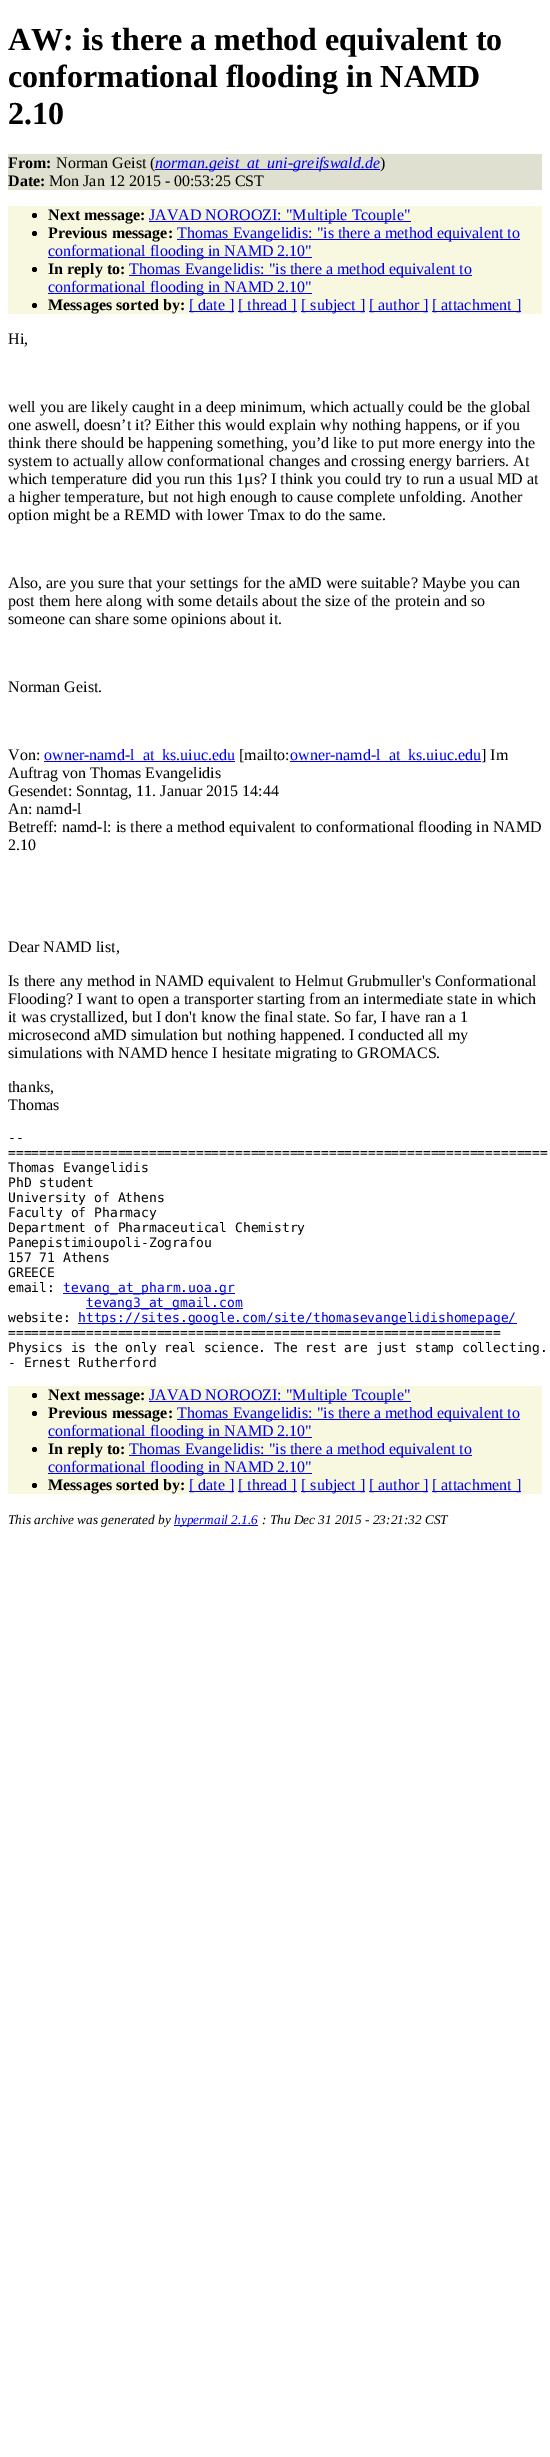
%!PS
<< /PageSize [550 2457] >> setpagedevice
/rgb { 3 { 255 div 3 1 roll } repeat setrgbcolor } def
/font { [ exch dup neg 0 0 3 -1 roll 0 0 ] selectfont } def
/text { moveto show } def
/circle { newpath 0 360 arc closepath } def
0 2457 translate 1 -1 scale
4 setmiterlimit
255 255 255 rgb
0 0 550 2457 rectfill
224 224 208 rgb
8 154 534 36 rectfill
0 0 238 rgb
155 169 225 1 rectfill
248 248 224 rgb
8 206 534 108 rectfill
0 0 0 rgb
34.5 215.5 2.5 circle fill
0 0 238 rgb
149 221 262 1 rectfill
0 0 0 rgb
34.5 233.5 2.5 circle fill
0 0 238 rgb
177 239 343 1 rectfill
48 257 264 1 rectfill
0 0 0 rgb
34.5 269.5 2.5 circle fill
0 0 238 rgb
129 275 343 1 rectfill
48 293 264 1 rectfill
0 0 0 rgb
34.5 305.5 2.5 circle fill
0 0 238 rgb
189 311 45 1 rectfill
238 311 59 1 rectfill
301 311 64 1 rectfill
369 311 59 1 rectfill
432 311 89 1 rectfill
44 761 191 1 rectfill
290 761 191 1 rectfill
63 1293 172 1 rectfill
86 1308 157 1 rectfill
78 1323 439 1 rectfill
248 248 224 rgb
8 1386 534 108 rectfill
0 0 0 rgb
34.5 1395.5 2.5 circle fill
0 0 238 rgb
149 1401 262 1 rectfill
0 0 0 rgb
34.5 1413.5 2.5 circle fill
0 0 238 rgb
177 1419 343 1 rectfill
48 1437 264 1 rectfill
0 0 0 rgb
34.5 1449.5 2.5 circle fill
0 0 238 rgb
129 1455 343 1 rectfill
48 1473 264 1 rectfill
0 0 0 rgb
34.5 1485.5 2.5 circle fill
0 0 238 rgb
189 1491 45 1 rectfill
238 1491 59 1 rectfill
301 1491 64 1 rectfill
369 1491 59 1 rectfill
432 1491 89 1 rectfill
174 1525 84 1 rectfill
/LiberationSerif-Bold 32 font
0 0 0 rgb
(AW: is there a method equivalent to) 8 50 text
(conformational flooding in NAMD) 8 87 text
(2.10) 8 124 text
/LiberationSerif-Bold 16 font
(From:) 8 168 text
/LiberationSerif-Regular 16 font
(Norman Geist \() 56 168 text
/LiberationSerif-Italic 16 font
0 0 238 rgb
(norman.geist_at_uni-greifswald.de) 155 168 text
/LiberationSerif-Regular 16 font
0 0 0 rgb
(\)) 380 168 text
/LiberationSerif-Bold 16 font
(Date:) 8 186 text
/LiberationSerif-Regular 16 font
(Mon Jan 12 2015 - 00:53:25 CST) 49 186 text
/LiberationSerif-Bold 16 font
(Next message:) 48 220 text
/LiberationSerif-Regular 16 font
0 0 238 rgb
(JAVAD NOROOZI: "Multiple Tcouple") 149 220 text
/LiberationSerif-Bold 16 font
0 0 0 rgb
(Previous message:) 48 238 text
/LiberationSerif-Regular 16 font
0 0 238 rgb
(Thomas Evangelidis: "is there a method equivalent to) 177 238 text
(conformational flooding in NAMD 2.10") 48 256 text
/LiberationSerif-Bold 16 font
0 0 0 rgb
(In reply to:) 48 274 text
/LiberationSerif-Regular 16 font
0 0 238 rgb
(Thomas Evangelidis: "is there a method equivalent to) 129 274 text
(conformational flooding in NAMD 2.10") 48 292 text
/LiberationSerif-Bold 16 font
0 0 0 rgb
(Messages sorted by:) 48 310 text
/LiberationSerif-Regular 16 font
0 0 238 rgb
([ date ]) 189 310 text
([ thread ]) 238 310 text
([ subject ]) 301 310 text
([ author ]) 369 310 text
([ attachment ]) 432 310 text
0 0 0 rgb
(Hi,) 8 344 text
(well you are likely caught in a deep minimum, which actually could be the global) 8 412 text
(one aswell, doesn’t it? Either this would explain why nothing happens, or if you) 8 430 text
(think there should be happening something, you’d like to put more energy into the) 8 448 text
(system to actually allow conformational changes and crossing energy barriers. At) 8 466 text
(which temperature did you run this 1µs? I think you could try to run a usual MD at) 8 484 text
(a higher temperature, but not high enough to cause complete unfolding. Another) 8 502 text
(option might be a REMD with lower Tmax to do the same.) 8 520 text
(Also, are you sure that your settings for the aMD were suitable? Maybe you can) 8 588 text
(post them here along with some details about the size of the protein and so) 8 606 text
(someone can share some opinions about it.) 8 624 text
(Norman Geist.) 8 692 text
(Von:) 8 760 text
0 0 238 rgb
(owner-namd-l_at_ks.uiuc.edu) 44 760 text
0 0 0 rgb
([mailto:) 239 760 text
0 0 238 rgb
(owner-namd-l_at_ks.uiuc.edu) 290 760 text
0 0 0 rgb
(] Im) 481 760 text
(Auftrag von Thomas Evangelidis) 8 778 text
(Gesendet: Sonntag, 11. Januar 2015 14:44) 8 796 text
(An: namd-l) 8 814 text
(Betreff: namd-l: is there a method equivalent to conformational flooding in NAMD) 8 832 text
(2.10) 8 850 text
(Dear NAMD list,) 8 952 text
(Is there any method in NAMD equivalent to Helmut Grubmuller's Conformational) 8 986 text
(Flooding? I want to open a transporter starting from an intermediate state in which) 8 1004 text
(it was crystallized, but I don't know the final state. So far, I have ran a 1) 8 1022 text
(microsecond aMD simulation but nothing happened. I conducted all my) 8 1040 text
(simulations with NAMD hence I hesitate migrating to GROMACS.) 8 1058 text
(thanks,) 8 1092 text
(Thomas) 8 1110 text
/DejaVuSansMono-Regular 13 font
(--) 8 1142 text
(=====================================================================) 8 1157 text
(Thomas Evangelidis) 8 1172 text
(PhD student) 8 1187 text
(University of Athens) 8 1202 text
(Faculty of Pharmacy) 8 1217 text
(Department of Pharmaceutical Chemistry) 8 1232 text
(Panepistimioupoli-Zografou) 8 1247 text
(157 71 Athens) 8 1262 text
(GREECE) 8 1277 text
(email:) 8 1292 text
0 0 238 rgb
(tevang_at_pharm.uoa.gr) 63 1292 text
(tevang3_at_gmail.com) 86 1307 text
0 0 0 rgb
(website:) 8 1322 text
0 0 238 rgb
(https://sites.google.com/site/thomasevangelidishomepage/) 78 1322 text
0 0 0 rgb
(===============================================================) 8 1337 text
(Physics is the only real science. The rest are just stamp collecting.) 8 1352 text
(- Ernest Rutherford) 8 1367 text
/LiberationSerif-Bold 16 font
(Next message:) 48 1400 text
/LiberationSerif-Regular 16 font
0 0 238 rgb
(JAVAD NOROOZI: "Multiple Tcouple") 149 1400 text
/LiberationSerif-Bold 16 font
0 0 0 rgb
(Previous message:) 48 1418 text
/LiberationSerif-Regular 16 font
0 0 238 rgb
(Thomas Evangelidis: "is there a method equivalent to) 177 1418 text
(conformational flooding in NAMD 2.10") 48 1436 text
/LiberationSerif-Bold 16 font
0 0 0 rgb
(In reply to:) 48 1454 text
/LiberationSerif-Regular 16 font
0 0 238 rgb
(Thomas Evangelidis: "is there a method equivalent to) 129 1454 text
(conformational flooding in NAMD 2.10") 48 1472 text
/LiberationSerif-Bold 16 font
0 0 0 rgb
(Messages sorted by:) 48 1490 text
/LiberationSerif-Regular 16 font
0 0 238 rgb
([ date ]) 189 1490 text
([ thread ]) 238 1490 text
([ subject ]) 301 1490 text
([ author ]) 369 1490 text
([ attachment ]) 432 1490 text
/LiberationSerif-Italic 13.3 font
0 0 0 rgb
(This archive was generated by) 8 1524 text
0 0 238 rgb
(hypermail 2.1.6) 174 1524 text
0 0 0 rgb
(: Thu Dec 31 2015 - 23:21:32 CST) 262 1524 text
showpage
